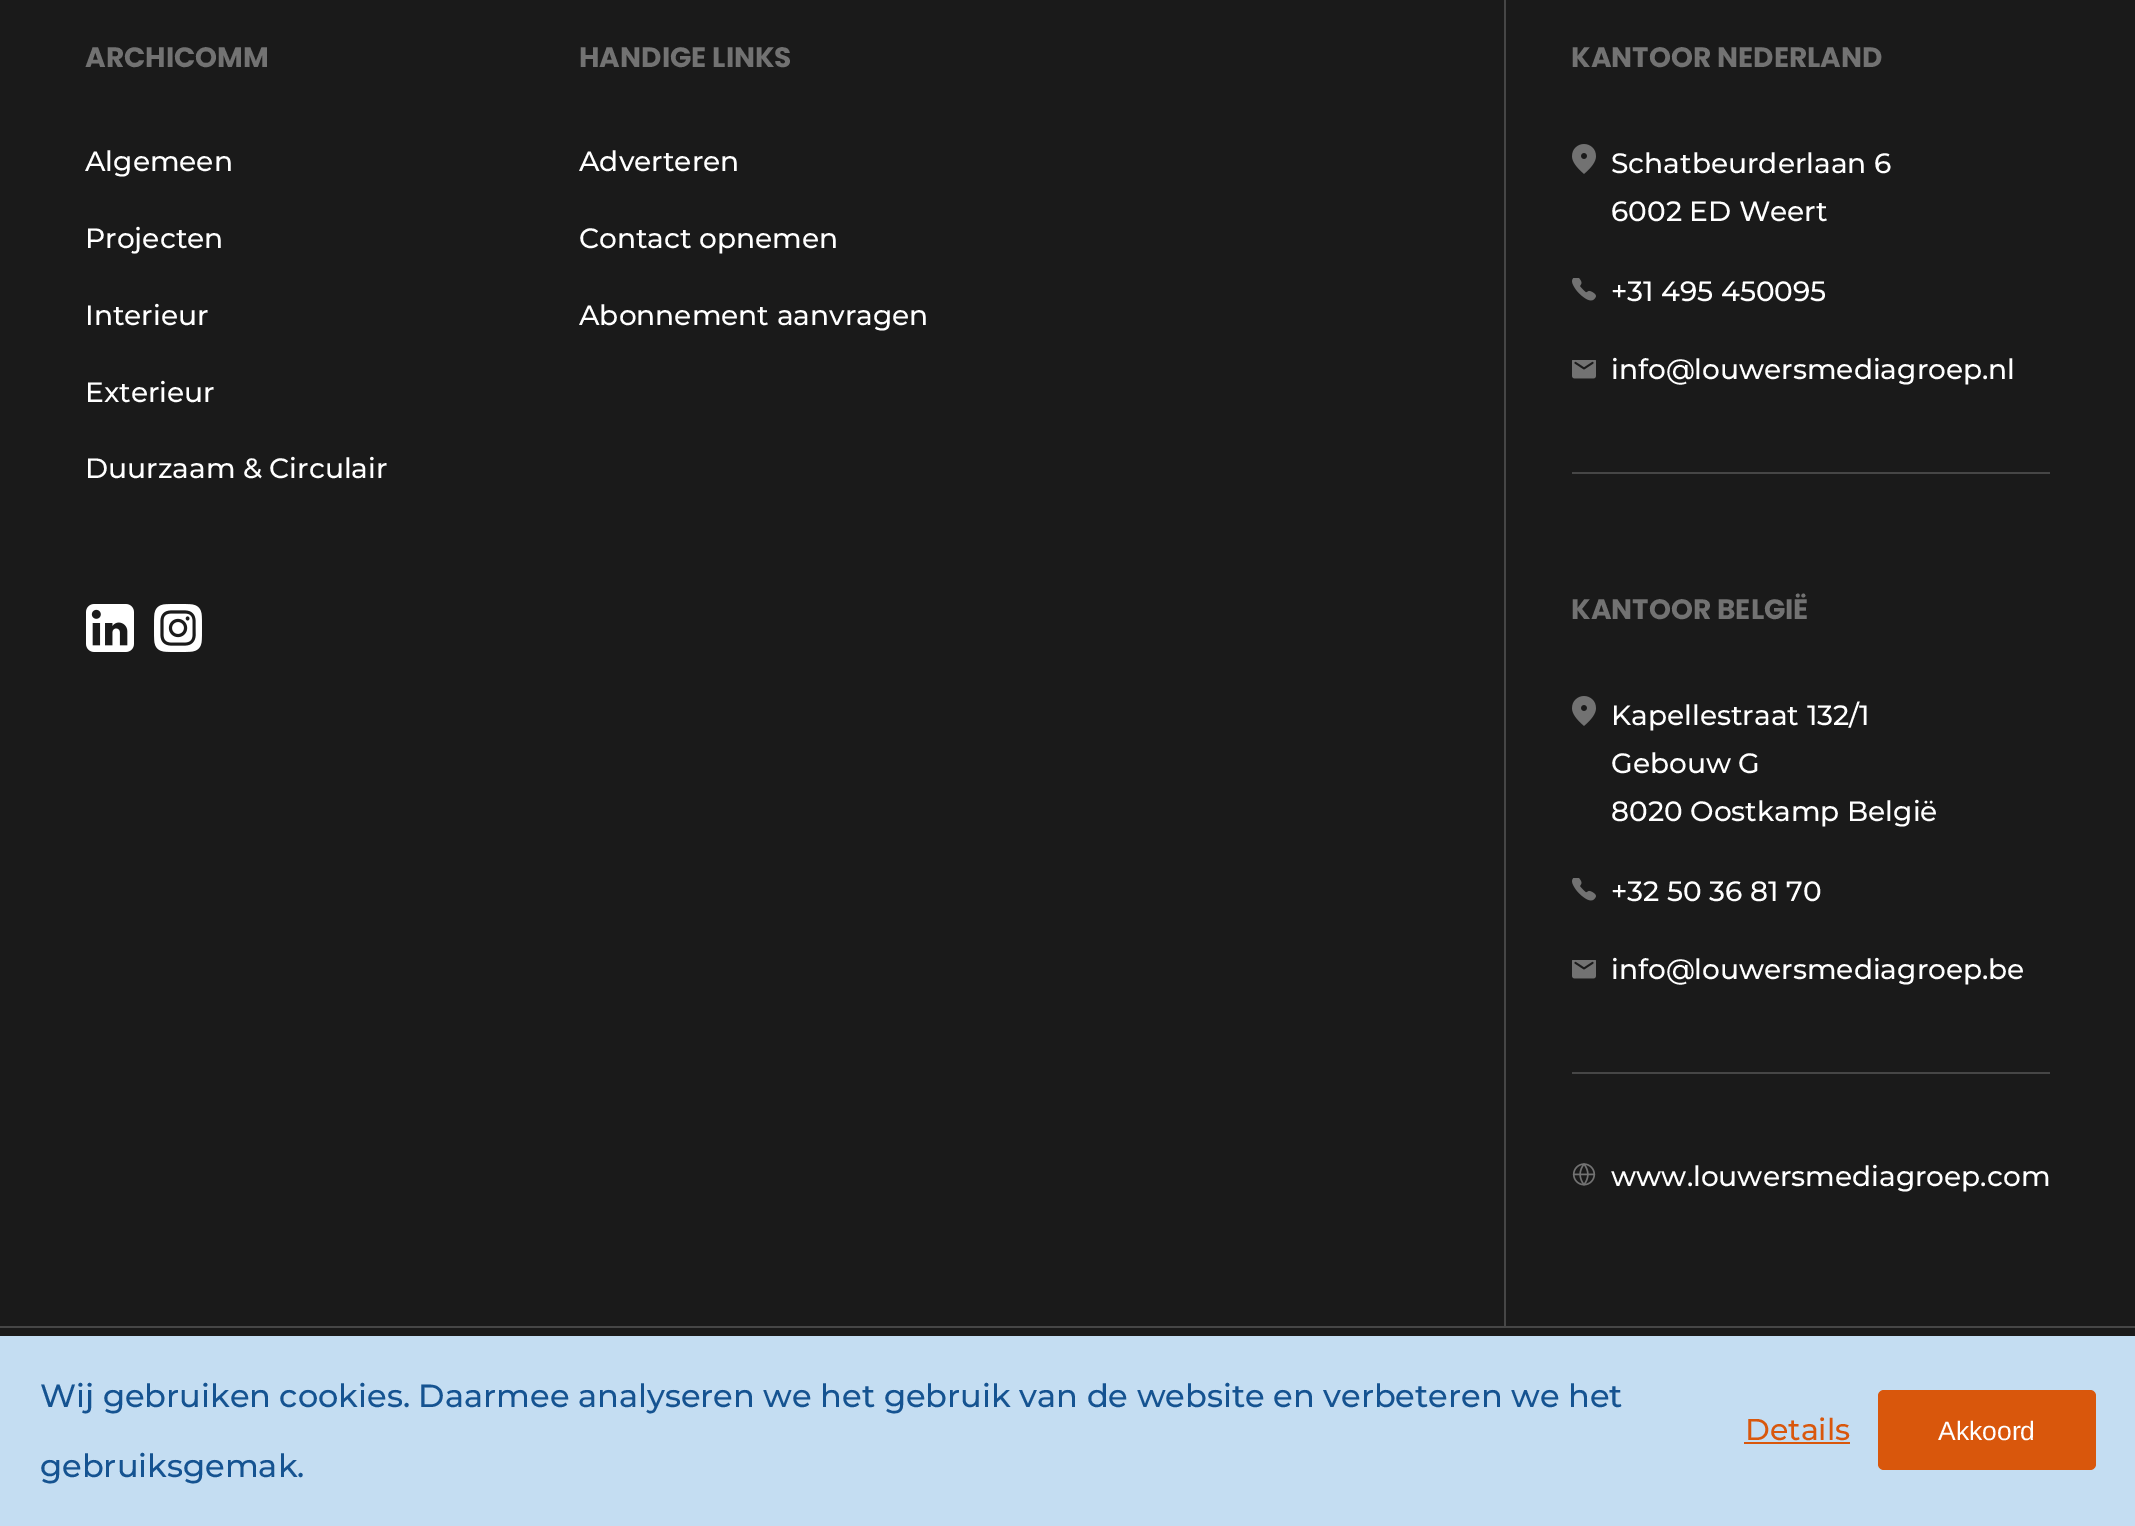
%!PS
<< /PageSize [2135 1526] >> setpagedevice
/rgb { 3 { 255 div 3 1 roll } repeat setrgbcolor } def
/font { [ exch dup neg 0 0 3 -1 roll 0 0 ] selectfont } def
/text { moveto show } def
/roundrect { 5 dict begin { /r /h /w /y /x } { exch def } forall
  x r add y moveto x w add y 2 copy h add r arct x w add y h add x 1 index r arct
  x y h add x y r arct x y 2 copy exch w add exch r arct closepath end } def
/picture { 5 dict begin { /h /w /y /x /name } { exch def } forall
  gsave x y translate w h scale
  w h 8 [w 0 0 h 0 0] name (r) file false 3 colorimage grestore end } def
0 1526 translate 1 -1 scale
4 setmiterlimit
26 26 26 rgb
0 0 2135 1526 rectfill
70 70 70 rgb
1504 0 2 1326 rectfill
(img_01.rgb) 86 604 48 48 picture
(img_02.rgb) 154 604 48 48 picture
1572 472 478 2 rectfill
(img_03.rgb) 1572 144 24 30 picture
(img_04.rgb) 1572 278 24 23 picture
(img_05.rgb) 1572 360 24 19 picture
1572 1072 478 2 rectfill
(img_03.rgb) 1572 696 24 30 picture
(img_04.rgb) 1572 878 24 23 picture
(img_05.rgb) 1572 960 24 19 picture
(img_06.rgb) 1572 1163 24 23 picture
0 1326 2135 2 rectfill
196 221 242 rgb
0 1336 2135 190 rectfill
217 87 12 rgb
1744 1442 106 2 rectfill
1878 1390 218 80 6 roundrect fill
/Poppins-Bold 28 font
114 114 114 rgb
(ARCHICOMM) 85 67 text
/Montserrat-Medium 28 font
255 255 255 rgb
(Algemeen) 85 171 text
(Projecten) 85 248 text
(Interieur) 85 325 text
(Exterieur) 85 402 text
(Duurzaam & Circulair) 85 478 text
/Poppins-Bold 28 font
114 114 114 rgb
(HANDIGE LINKS) 579 67 text
/Montserrat-Medium 28 font
255 255 255 rgb
(Adverteren) 579 171 text
(Contact opnemen) 579 248 text
(Abonnement aanvragen) 579 325 text
/Poppins-Bold 28 font
114 114 114 rgb
(KANTOOR NEDERLAND) 1571 67 text
/Montserrat-Medium 28 font
255 255 255 rgb
(Schatbeurderlaan 6) 1611 173 text
(6002 ED Weert) 1611 221 text
(+31 495 450095) 1611 301 text
(info@louwersmediagroep.nl) 1611 379 text
/Poppins-Bold 28 font
114 114 114 rgb
(KANTOOR BELGIË) 1571 619 text
/Montserrat-Medium 28 font
255 255 255 rgb
(Kapellestraat 132/1) 1611 725 text
(Gebouw G) 1611 773 text
(8020 Oostkamp België) 1611 821 text
(+32 50 36 81 70) 1611 901 text
(info@louwersmediagroep.be) 1611 979 text
(www.louwersmediagroep.com) 1611 1186 text
/Montserrat-Medium 32 font
21 83 145 rgb
(Wij gebruiken cookies. Daarmee analyseren we het gebruik van de website en verbeteren we het) 40 1407 text
(gebruiksgemak.) 40 1477 text
/Montserrat-Medium 30 font
217 87 12 rgb
(Details) 1745 1440 text
/LiberationSans-Regular 26.5 font
255 255 255 rgb
(Akkoord) 1938 1440 text
showpage
